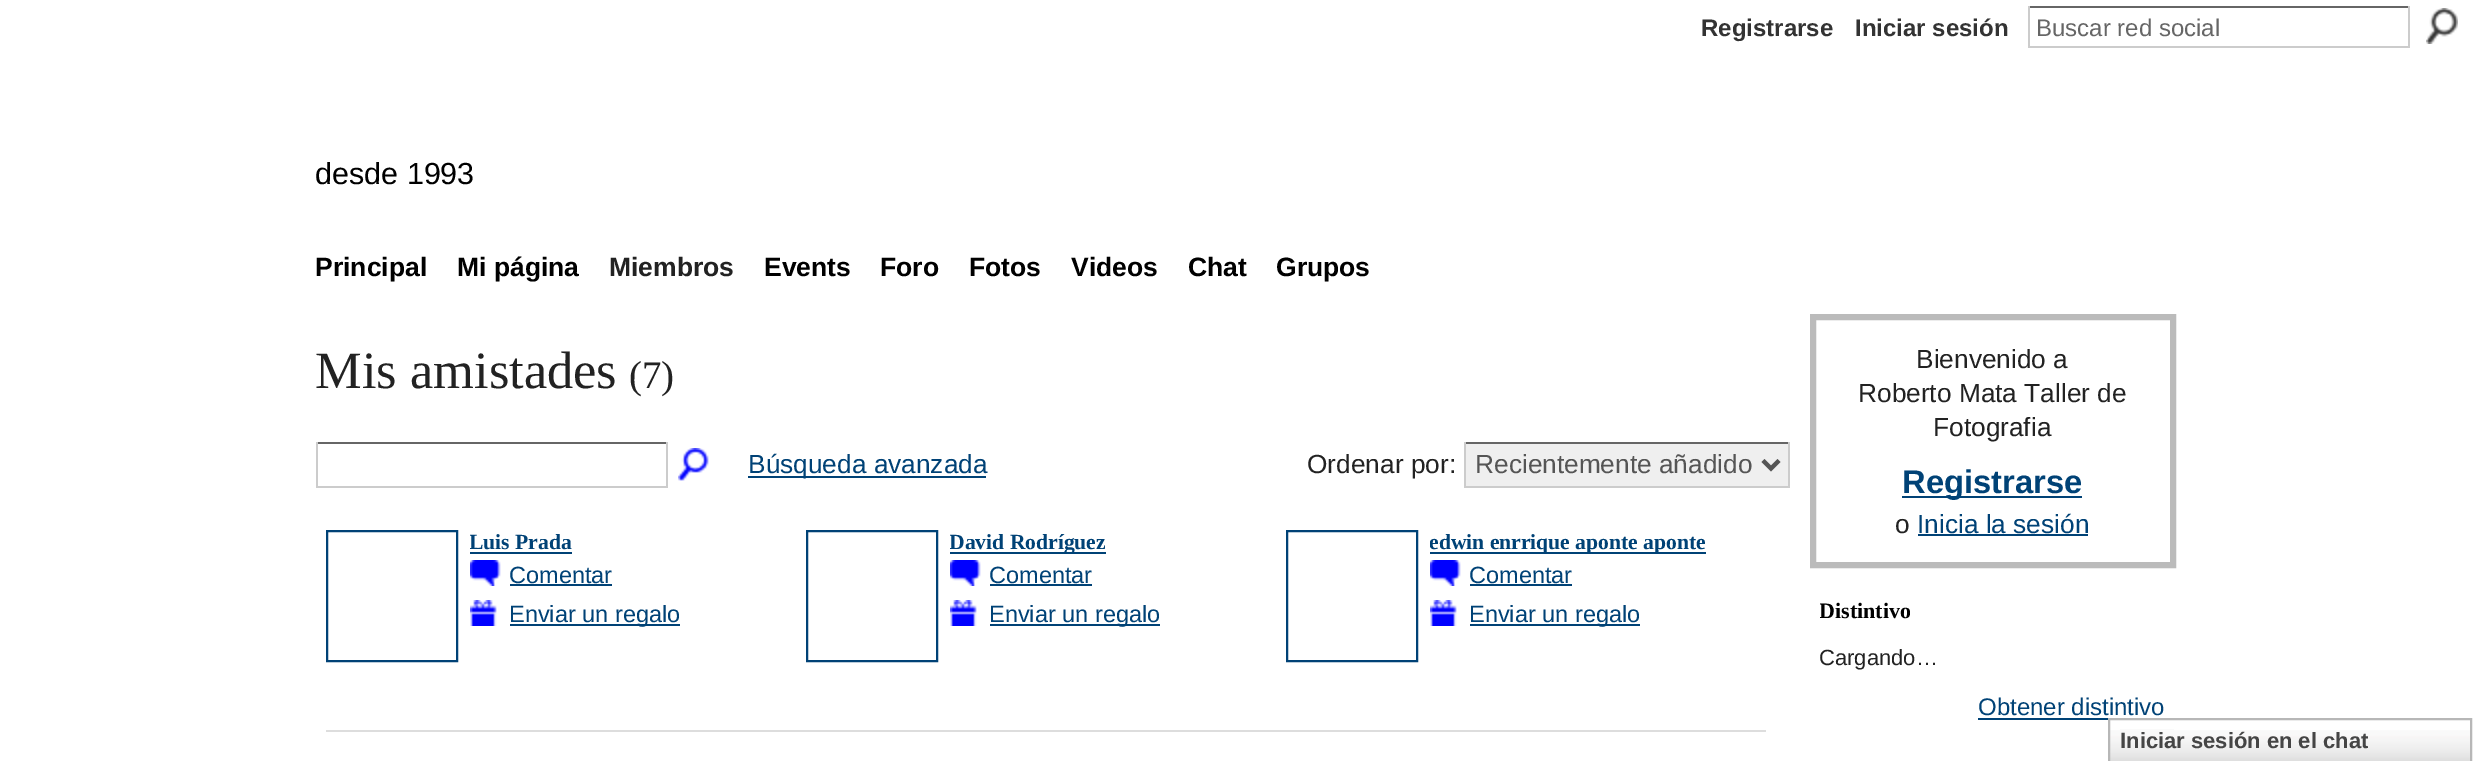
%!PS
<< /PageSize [2479 761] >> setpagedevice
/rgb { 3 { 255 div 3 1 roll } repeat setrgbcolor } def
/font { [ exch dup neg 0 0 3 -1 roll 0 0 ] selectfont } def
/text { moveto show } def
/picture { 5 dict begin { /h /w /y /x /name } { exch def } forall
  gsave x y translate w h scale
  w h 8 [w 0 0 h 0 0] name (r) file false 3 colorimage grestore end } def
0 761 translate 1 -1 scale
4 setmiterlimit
255 255 255 rgb
0 0 2479 761 rectfill
102 102 102 rgb
2028 6 382 2 rectfill
204 204 204 rgb
2408 6 2 42 rectfill
2028 46 382 2 rectfill
2028 6 2 42 rectfill
(img_01.rgb) 2426 8 32 36 picture
102 102 102 rgb
316 442 352 2 rectfill
204 204 204 rgb
666 442 2 46 rectfill
316 486 352 2 rectfill
316 442 2 46 rectfill
(img_02.rgb) 678 448 31 33 picture
0 66 118 rgb
748 476 238 2 rectfill
239 239 239 rgb
1466 444 322 42 rectfill
102 102 102 rgb
1464 442 326 2 rectfill
204 204 204 rgb
1788 442 2 46 rectfill
1464 486 326 2 rectfill
1464 442 2 46 rectfill
85 85 85 rgb
4 setlinewidth
1763 460.5 moveto 8 8 rlineto 8 -8 rlineto stroke
221 221 221 rgb
326 730 1440 2 rectfill
0 66 118 rgb
2 setlinewidth
327 531 130 130 rectstroke
470 552 102 2 rectfill
(img_03.rgb) 470 560 31 26 picture
510 584 102 2 rectfill
(img_04.rgb) 470 600 27 26 picture
510 624 170 2 rectfill
807 531 130 130 rectstroke
950 552 156 2 rectfill
(img_03.rgb) 950 560 31 26 picture
990 584 102 2 rectfill
(img_04.rgb) 950 600 27 26 picture
990 624 170 2 rectfill
1287 531 130 130 rectstroke
1430 552 276 2 rectfill
(img_03.rgb) 1430 560 31 26 picture
1470 584 102 2 rectfill
(img_04.rgb) 1430 600 27 26 picture
1470 624 170 2 rectfill
187 187 187 rgb
6 setlinewidth
1813 317 360 248 rectstroke
0 66 118 rgb
1902 496 180 2 rectfill
1918 534 170 2 rectfill
1978 718 130 2 rectfill
(img_05.rgb) 2110 730 360 31 picture
183 183 183 rgb
2 setlinewidth
2109 719 362 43 rectstroke
250 250 250 rgb
2120 729 54 1 rectfill
/LiberationSans-Bold 24 font
51 51 51 rgb
(Registrarse) 1701 36 text
(Iniciar sesión) 1855 36 text
/LiberationSans-Regular 24 font
102 102 102 rgb
(Buscar red social) 2036 36 text
/LiberationSans-Regular 30.5 font
0 0 0 rgb
(desde 1993) 315 184 text
/LiberationSans-Bold 26.5 font
(Principal) 315 276 text
(Mi página) 457 276 text
34 34 34 rgb
(Miembros) 609 276 text
0 0 0 rgb
(Events) 764 276 text
(Foro) 880 276 text
(Fotos) 969 276 text
(Videos) 1071 276 text
(Chat) 1188 276 text
(Grupos) 1276 276 text
/LiberationSerif-Regular 52.5 font
34 34 34 rgb
(Mis amistades) 315 388 text
/LiberationSerif-Regular 39 font
(\(7\)) 629 388 text
/LiberationSans-Regular 26.25 font
0 66 118 rgb
(Búsqueda avanzada) 748 473 text
34 34 34 rgb
(Ordenar por:) 1307 473 text
85 85 85 rgb
(Recientemente añadido) 1475 473 text
gsave
470 530 326 24 rectclip
/LiberationSerif-Bold 21.6 font
0 66 118 rgb
(Luis Prada) 469 549 text
grestore
/LiberationSans-Regular 23.5 font
0 66 118 rgb
(Comentar) 509 583 text
(Enviar un regalo) 509 622 text
gsave
950 530 326 24 rectclip
/LiberationSerif-Bold 21.6 font
(David Rodríguez) 949 549 text
grestore
(Comentar) 989 583 text
(Enviar un regalo) 989 622 text
gsave
1430 530 326 24 rectclip
/LiberationSerif-Bold 21.6 font
(edwin enrrique aponte aponte) 1429 549 text
grestore
(Comentar) 1469 583 text
(Enviar un regalo) 1469 622 text
/LiberationSans-Regular 26.25 font
34 34 34 rgb
(Bienvenido a) 1916 368 text
(Roberto Mata Taller de) 1858 402 text
(Fotografia) 1933 436 text
/LiberationSans-Bold 32.75 font
0 66 118 rgb
(Registrarse) 1902 493 text
/LiberationSans-Regular 26.25 font
34 34 34 rgb
(o) 1895 533 text
0 66 118 rgb
(Inicia la sesión) 1917 533 text
gsave
1820 596 90 28 rectclip
/LiberationSerif-Bold 22 font
0 0 0 rgb
(Distintivo) 1819 618 text
grestore
/LiberationSans-Regular 22 font
34 34 34 rgb
(Cargando…) 1819 665 text
/LiberationSans-Regular 24 font
0 66 118 rgb
(Obtener distintivo) 1978 715 text
/LiberationSans-Bold 22 font
69 69 69 rgb
(Iniciar sesión en el chat) 2120 748 text
showpage
